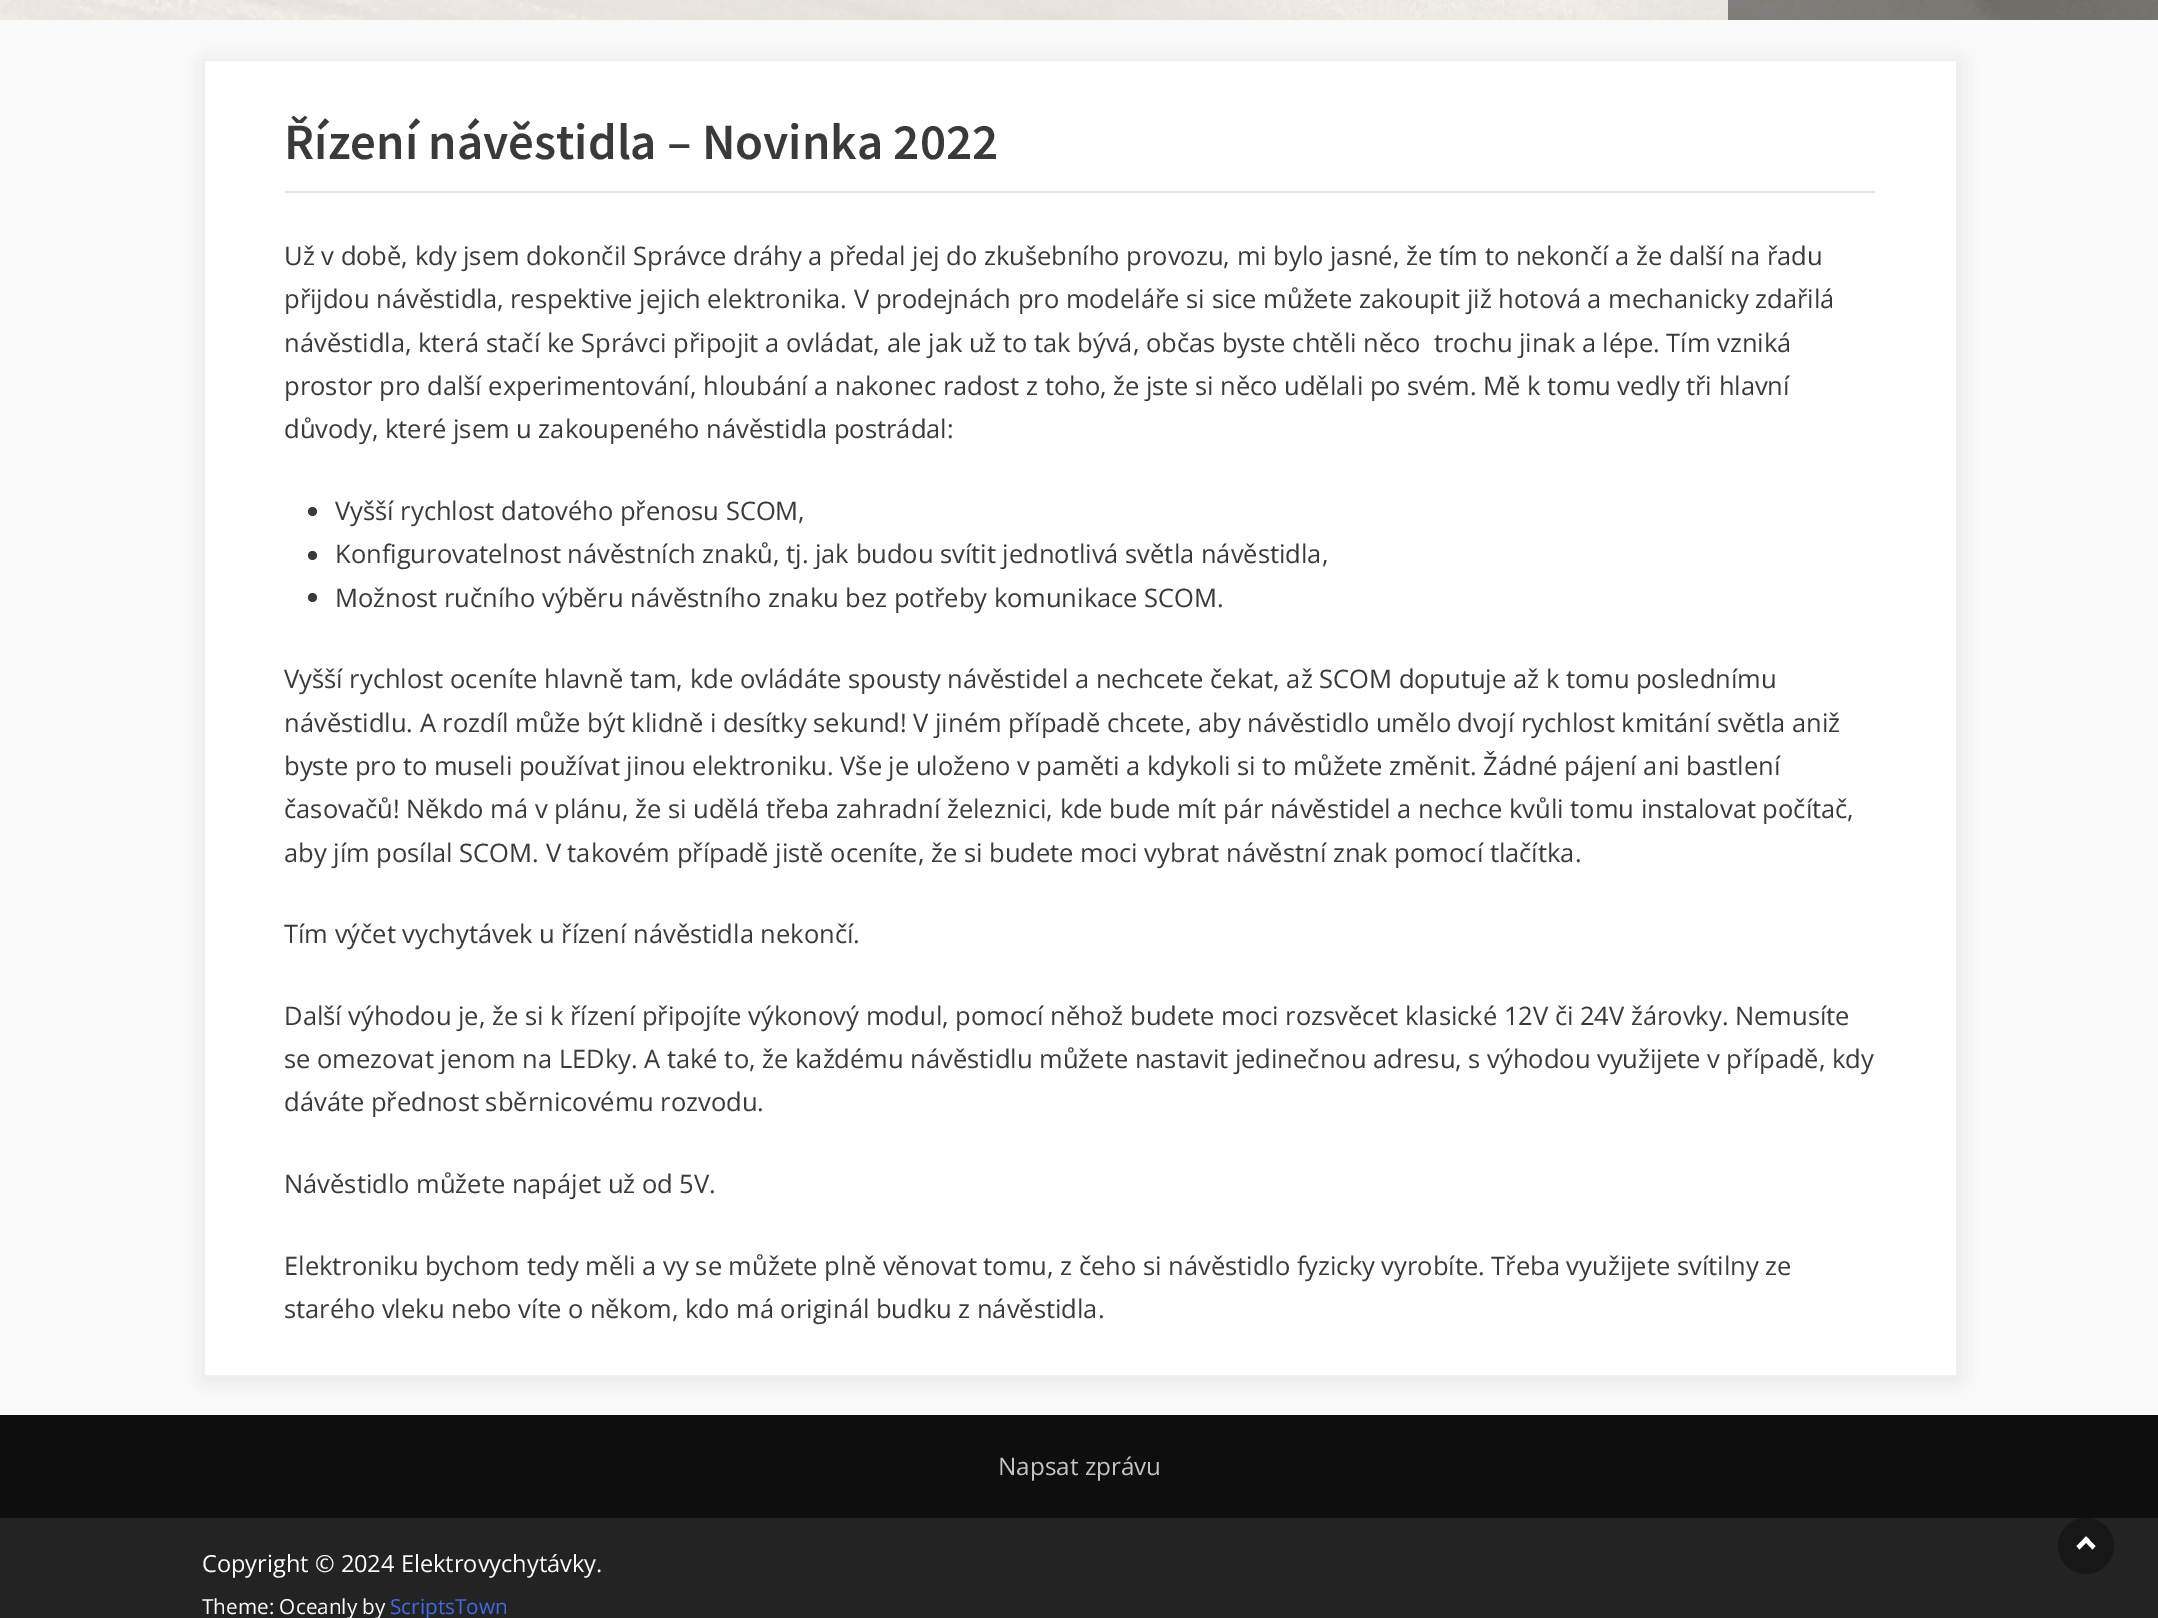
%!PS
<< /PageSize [2158 1618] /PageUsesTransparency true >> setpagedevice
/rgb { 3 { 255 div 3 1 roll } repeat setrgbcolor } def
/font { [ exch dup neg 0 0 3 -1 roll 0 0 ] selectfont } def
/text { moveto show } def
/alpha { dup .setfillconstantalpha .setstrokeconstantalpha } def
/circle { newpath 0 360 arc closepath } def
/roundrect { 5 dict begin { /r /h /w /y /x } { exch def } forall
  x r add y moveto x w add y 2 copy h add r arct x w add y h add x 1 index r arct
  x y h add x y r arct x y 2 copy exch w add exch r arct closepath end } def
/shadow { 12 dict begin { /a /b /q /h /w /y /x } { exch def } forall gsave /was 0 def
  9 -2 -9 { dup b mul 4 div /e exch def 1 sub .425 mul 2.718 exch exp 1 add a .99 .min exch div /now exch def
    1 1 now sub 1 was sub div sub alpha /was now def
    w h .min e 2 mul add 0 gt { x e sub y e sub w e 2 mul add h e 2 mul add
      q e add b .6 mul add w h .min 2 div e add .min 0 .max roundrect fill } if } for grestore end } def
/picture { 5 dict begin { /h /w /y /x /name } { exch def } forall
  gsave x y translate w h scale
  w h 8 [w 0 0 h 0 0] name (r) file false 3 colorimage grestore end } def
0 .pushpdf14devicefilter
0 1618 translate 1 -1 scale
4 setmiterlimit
250 250 250 rgb
0 0 2158 1618 rectfill
(img_01.rgb) 0 0 2158 20 picture
0.45 alpha
0 0 0 rgb
1728 0 430 20 rectfill
1 alpha
14 14 14 rgb
0 1415 2158 103 rectfill
0 0 0 rgb
204 62 1755 1318 0 12 0.08 shadow
255 255 255 rgb
204 60 moveto 1753 0 rlineto 0 1316 rlineto -1753 0 rlineto closepath gsave fill grestore
239 239 239 rgb
2 setlinewidth
stroke
230 230 230 rgb
285 191 1590 2 rectfill
58 58 58 rgb
312.5 511.5 4.5 circle fill
312.5 555.5 4.5 circle fill
312.5 597.5 4.5 circle fill
36 35 35 rgb
0 1518 2158 100 rectfill
23 23 23 rgb
2086 1546 28 circle fill
255 255 255 rgb
2079.5 1549.5 moveto -3 -3.5 rlineto 9.5 -9.5 rlineto 3.5 3 rlineto closepath fill
2092.5 1549.5 moveto -9.5 -10 rlineto 3 -3 rlineto 9.5 9.5 rlineto closepath fill
/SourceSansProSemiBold-SemiBold 51 font
58 58 58 rgb
(Řízení návěstidla – Novinka 2022) 284 159 text
/OpenSans-Regular 25.5 font
(Už v době, kdy jsem dokončil Správce dráhy a předal jej do zkušebního provozu, mi bylo jasné, že tím to nekončí a že další na řadu) 284 265 text
(přijdou návěstidla, respektive jejich elektronika. V prodejnách pro modeláře si sice můžete zakoupit již hotová a mechanicky zdařilá) 284 308 text
(návěstidla, která stačí ke Správci připojit a ovládat, ale jak už to tak bývá, občas byste chtěli něco  trochu jinak a lépe. Tím vzniká) 284 352 text
(prostor pro další experimentování, hloubání a nakonec radost z toho, že jste si něco udělali po svém. Mě k tomu vedly tři hlavní) 284 395 text
(důvody, které jsem u zakoupeného návěstidla postrádal:) 284 438 text
(Vyšší rychlost datového přenosu SCOM,) 335 520 text
(Konfigurovatelnost návěstních znaků, tj. jak budou svítit jednotlivá světla návěstidla,) 335 563 text
(Možnost ručního výběru návěstního znaku bez potřeby komunikace SCOM.) 335 607 text
(Vyšší rychlost oceníte hlavně tam, kde ovládáte spousty návěstidel a nechcete čekat, až SCOM doputuje až k tomu poslednímu) 284 688 text
(návěstidlu. A rozdíl může být klidně i desítky sekund! V jiném případě chcete, aby návěstidlo umělo dvojí rychlost kmitání světla aniž) 284 732 text
(byste pro to museli používat jinou elektroniku. Vše je uloženo v paměti a kdykoli si to můžete změnit. Žádné pájení ani bastlení) 284 775 text
(časovačů! Někdo má v plánu, že si udělá třeba zahradní železnici, kde bude mít pár návěstidel a nechce kvůli tomu instalovat počítač,) 284 818 text
(aby jím posílal SCOM. V takovém případě jistě oceníte, že si budete moci vybrat návěstní znak pomocí tlačítka.) 284 862 text
(Tím výčet vychytávek u řízení návěstidla nekončí.) 284 943 text
(Další výhodou je, že si k řízení připojíte výkonový modul, pomocí něhož budete moci rozsvěcet klasické 12V či 24V žárovky. Nemusíte) 284 1025 text
(se omezovat jenom na LEDky. A také to, že každému návěstidlu můžete nastavit jedinečnou adresu, s výhodou využijete v případě, kdy) 284 1068 text
(dáváte přednost sběrnicovému rozvodu.) 284 1111 text
(Návěstidlo můžete napájet už od 5V.) 284 1193 text
(Elektroniku bychom tedy měli a vy se můžete plně věnovat tomu, z čeho si návěstidlo fyzicky vyrobíte. Třeba využijete svítilny ze) 284 1275 text
(starého vleku nebo víte o někom, kdo má originál budku z návěstidla.) 284 1318 text
/OpenSans-Regular 24.25 font
196 196 196 rgb
(Napsat zprávu) 998 1475 text
/OpenSans-Regular 23.6 font
255 255 255 rgb
(Copyright © 2024 Elektrovychytávky.) 202 1572 text
/OpenSans-Regular 20.75 font
(Theme: Oceanly by) 202 1614 text
65 105 225 rgb
(ScriptsTown) 390 1614 text
.poppdf14devicefilter showpage
